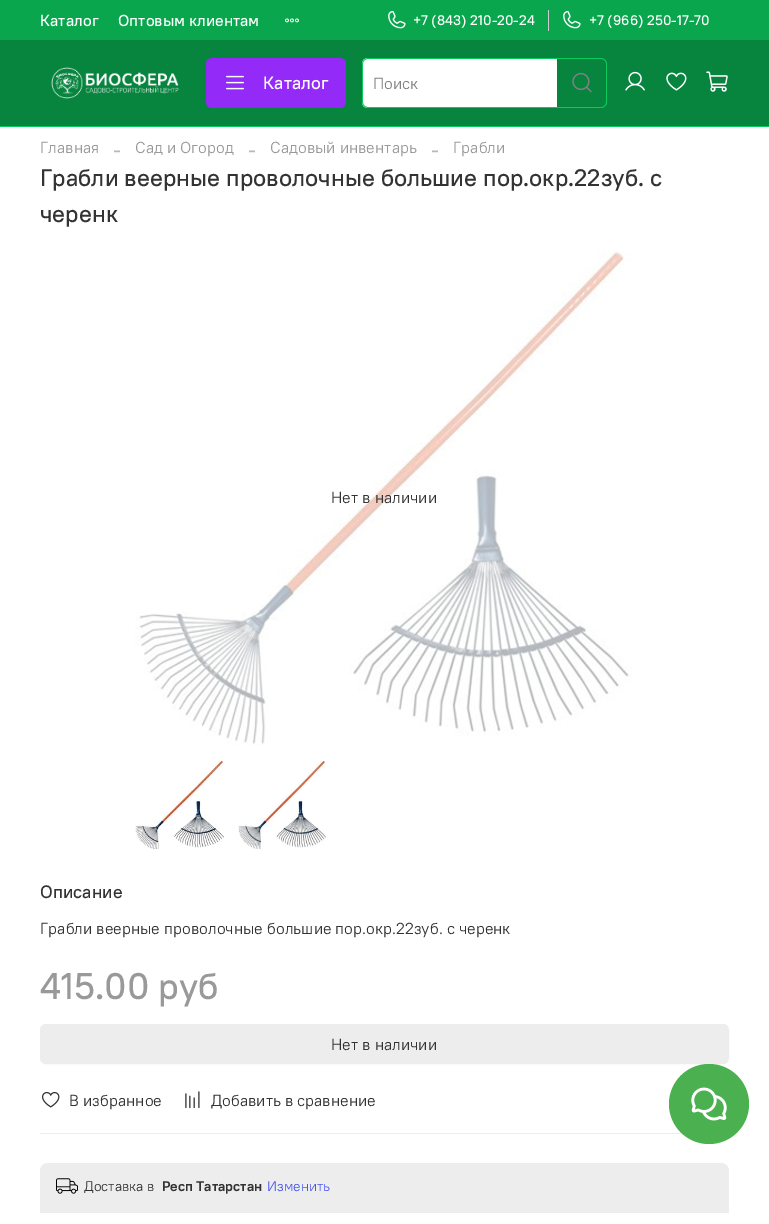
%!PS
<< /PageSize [769 1224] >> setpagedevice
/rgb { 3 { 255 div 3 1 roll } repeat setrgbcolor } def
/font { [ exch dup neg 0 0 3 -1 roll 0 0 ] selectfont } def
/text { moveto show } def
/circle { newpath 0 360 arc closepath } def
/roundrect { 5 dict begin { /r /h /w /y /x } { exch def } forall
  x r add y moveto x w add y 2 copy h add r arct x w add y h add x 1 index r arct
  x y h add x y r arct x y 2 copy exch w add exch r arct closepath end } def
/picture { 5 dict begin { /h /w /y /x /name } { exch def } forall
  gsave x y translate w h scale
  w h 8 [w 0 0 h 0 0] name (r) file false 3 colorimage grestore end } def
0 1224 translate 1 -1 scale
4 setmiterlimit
255 255 255 rgb
0 0 769 1224 rectfill
9 166 77 rgb
0 0 769 40 rectfill
(img_01.rgb) 285 18 14 5 picture
204 204 204 rgb
548 10 1 21 rectfill
(img_02.rgb) 388 10 18 19 picture
(img_02.rgb) 563 10 18 19 picture
7 132 62 rgb
0 40 769 86 rectfill
11 202 93 rgb
0 126 769 1 rectfill
(img_03.rgb) 51 67 128 32 picture
148 42 247 rgb
206 58 140 50 6 roundrect fill
(img_04.rgb) 226 75 18 15 picture
255 255 255 rgb
368 58 moveto 189 0 rlineto 0 50 rlineto -189 0 rlineto -3.5 0 -6 -2.5 -6 -6 rcurveto 0 -38 rlineto 0 -3.5 2.5 -6 6 -6 rcurveto closepath fill
11 202 93 rgb
368 58 moveto 189 0 rlineto 0 50 rlineto -189 0 rlineto -3 0 -6 -3 -6 -6 rcurveto 0 -38 rlineto 0 -3 3 -6 6 -6 rcurveto closepath 368 59 moveto 189 0 rlineto 0 48 rlineto -189 0 rlineto -3 0 -5 -2 -5 -5 rcurveto 0 -38 rlineto 0 -3 2 -5 5 -5 rcurveto closepath eofill
557 58 moveto 44 0 rlineto 3 0 6 3 6 6 rcurveto 0 38 rlineto 0 3 -3 6 -6 6 rcurveto -44 0 rlineto closepath 557 59 moveto 44 0 rlineto 3 0 5 2 5 5 rcurveto 0 38 rlineto 0 3 -2 5 -5 5 rcurveto -44 0 rlineto closepath eofill
(img_05.rgb) 572 72 20 21 picture
(img_06.rgb) 625 71 20 20 picture
(img_07.rgb) 666 72 21 19 picture
(img_08.rgb) 706 71 22 21 picture
(img_09.rgb) 135 251 497 494 picture
(img_10.rgb) 135 760 89 89 picture
(img_11.rgb) 238 760 88 89 picture
237 237 237 rgb
40.5 1024.5 688 39 5.5 roundrect gsave fill grestore
stroke
(img_12.rgb) 42 1091 18 17 picture
(img_13.rgb) 185 1091 15 18 picture
40 1133 643 1 rectfill
48 1163 moveto 673 0 rlineto 4.5 0 8 3.5 8 8 rcurveto 0 42 rlineto -689 0 rlineto 0 -42 rlineto 0 -4.5 3.5 -8 8 -8 rcurveto closepath fill
(img_14.rgb) 56 1178 22 16 picture
75 176 79 rgb
709 1104 40 circle fill
(img_15.rgb) 691 1087 36 34 picture
/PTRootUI-Medium 16 font
255 255 255 rgb
(Каталог) 40 26 text
(Оптовым клиентам) 118 26 text
/PTRootUI-Medium 14 font
(+7 \(843\) 210-20-24) 413 25 text
(+7 \(966\) 250-17-70) 589 25 text
/PTRootUI-Medium 18 font
(Каталог) 263 89 text
/PTRootUI-Regular 16 font
128 128 128 rgb
(Поиск) 373 89 text
153 153 153 rgb
(Главная) 40 153 text
/LiberationSerif-Regular 24 font
184 184 184 rgb
(-) 113 157 text
/PTRootUI-Regular 16 font
153 153 153 rgb
(Сад и Огород) 135 153 text
/LiberationSerif-Regular 24 font
184 184 184 rgb
(-) 248 157 text
/PTRootUI-Regular 16 font
153 153 153 rgb
(Садовый инвентарь) 270 153 text
/LiberationSerif-Regular 24 font
184 184 184 rgb
(-) 431 157 text
/PTRootUI-Regular 16 font
153 153 153 rgb
(Грабли) 453 153 text
/PTRootUI-Medium 24 font
51 51 51 rgb
(Грабли веерные проволочные большие пор.окр.22зуб. с) 40 186 text
(черенк) 40 222 text
/PTRootUI-Regular 16 font
(Нет в наличии) 331 503 text
/PTRootUI-Medium 18 font
(Описание) 40 898 text
/PTRootUI-Regular 16 font
(Грабли веерные проволочные большие пор.окр.22зуб. с черенк) 40 934 text
/PTRootUI-Medium 37 font
153 153 153 rgb
(415.00 руб) 40 999 text
/PTRootUI-Regular 16 font
51 51 51 rgb
(Нет в наличии) 331 1050 text
(В избранное) 69 1106 text
(Добавить в сравнение) 211 1106 text
/PTRootUI-Regular 14 font
(Доставка в) 84 1191 text
/PTRootUI-Bold 14 font
(Респ Татарстан) 162 1191 text
/PTRootUI-Regular 14 font
70 87 239 rgb
(Изменить) 267 1191 text
showpage
